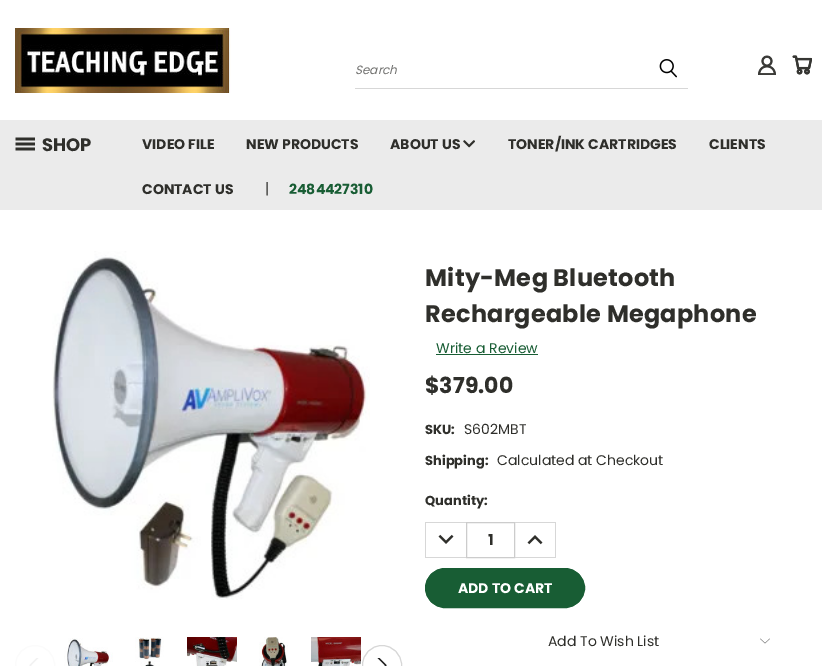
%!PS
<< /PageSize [822 666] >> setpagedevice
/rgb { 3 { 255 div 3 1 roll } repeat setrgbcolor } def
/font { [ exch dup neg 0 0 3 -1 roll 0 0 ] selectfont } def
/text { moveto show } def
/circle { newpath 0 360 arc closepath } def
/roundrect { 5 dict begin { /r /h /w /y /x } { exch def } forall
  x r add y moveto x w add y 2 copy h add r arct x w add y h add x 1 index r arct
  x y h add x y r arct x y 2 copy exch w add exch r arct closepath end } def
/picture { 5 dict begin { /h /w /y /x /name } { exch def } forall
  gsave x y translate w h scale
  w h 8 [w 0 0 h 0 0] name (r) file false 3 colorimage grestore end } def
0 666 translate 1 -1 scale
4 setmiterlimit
255 255 255 rgb
0 0 822 666 rectfill
(img_01.rgb) 15 28 216 65 picture
215 215 215 rgb
355 88 333 1 rectfill
(img_02.rgb) 659 59 18 19 picture
(img_03.rgb) 758 55 18 20 picture
(img_04.rgb) 792 55 20 20 picture
235 235 235 rgb
0 120 822 90 rectfill
(img_05.rgb) 15 137 20 14 picture
(img_06.rgb) 463 140 12 8 picture
(img_07.rgb) 52 251 318 349 picture
251 251 251 rgb
35 665 19.5 circle stroke
gsave
29 658 14 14 rectclip
242 242 242 rgb
1.2 setlinewidth
1 setlinecap
1 setlinejoin
42 653.5 moveto -12 12 rlineto 12 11.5 rlineto stroke
grestore
(img_08.rgb) 64 638 49 28 picture
(img_09.rgb) 135 637 29 29 picture
(img_10.rgb) 187 637 50 29 picture
(img_11.rgb) 259 637 29 29 picture
(img_12.rgb) 311 637 50 29 picture
215 215 215 rgb
382 665 19.5 circle stroke
gsave
373 658 14 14 rectclip
31 31 31 rgb
1.2 setlinewidth
1 setlinecap
1 setlinejoin
374 653.5 moveto 12 12 rlineto -12 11.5 rlineto stroke
grestore
24 93 52 rgb
436 354 102 1 rectfill
215 215 215 rgb
425 522 41 1 rectfill
425 557 41 1 rectfill
425 522 1 36 rectfill
(img_13.rgb) 438 534 16 10 picture
204 204 204 rgb
466.5 522.5 48 35 rectstroke
215 215 215 rgb
515 522 41 1 rectfill
555 522 1 36 rectfill
515 557 41 1 rectfill
(img_14.rgb) 527 535 16 10 picture
24 93 52 rgb
425.5 568.5 159 39 19.5 roundrect gsave fill grestore
stroke
(img_15.rgb) 760 638 10 6 picture
/Poppins-Italic 12 font
112 112 110 rgb
(Search) 355 74 text
/Poppins-Bold 18 font
47 47 43 rgb
(SHOP) 42 151 text
/Poppins-Bold 14 font
(VIDEO FILE) 142 149 text
(NEW PRODUCTS) 246 149 text
(ABOUT US) 390 149 text
(TONER/INK CARTRIDGES) 508 149 text
(CLIENTS) 709 149 text
(CONTACT US) 142 194 text
/Poppins-Regular 15 font
(|) 265 194 text
/Poppins-Bold 14 font
24 93 52 rgb
(2484427310) 289 194 text
/Poppins-Bold 24 font
47 47 43 rgb
425 286 moveto 0.25 0 (Mity-Meg Bluetooth) ashow
425 322 moveto 0.25 0 (Rechargeable Megaphone) ashow
/Poppins-Regular 14 font
24 93 52 rgb
(Write a Review) 436 353 text
/Poppins-Bold 22 font
47 47 43 rgb
($379.00) 425 393 text
/Poppins-Bold 13 font
(SKU:) 425 434 text
/Poppins-Regular 14 font
(S602MBT) 464 434 text
/Poppins-Bold 13 font
(Shipping:) 425 465 text
/Poppins-Regular 14 font
(Calculated at Checkout) 497 465 text
/Poppins-Bold 13 font
(Quantity:) 425 505 text
/Poppins-Bold 15 font
(1) 488 545 text
/Poppins-Bold 14 font
255 255 255 rgb
(ADD TO CART) 458 593 text
/Poppins-Regular 14 font
47 47 43 rgb
(Add To Wish List) 548 646 text
showpage
